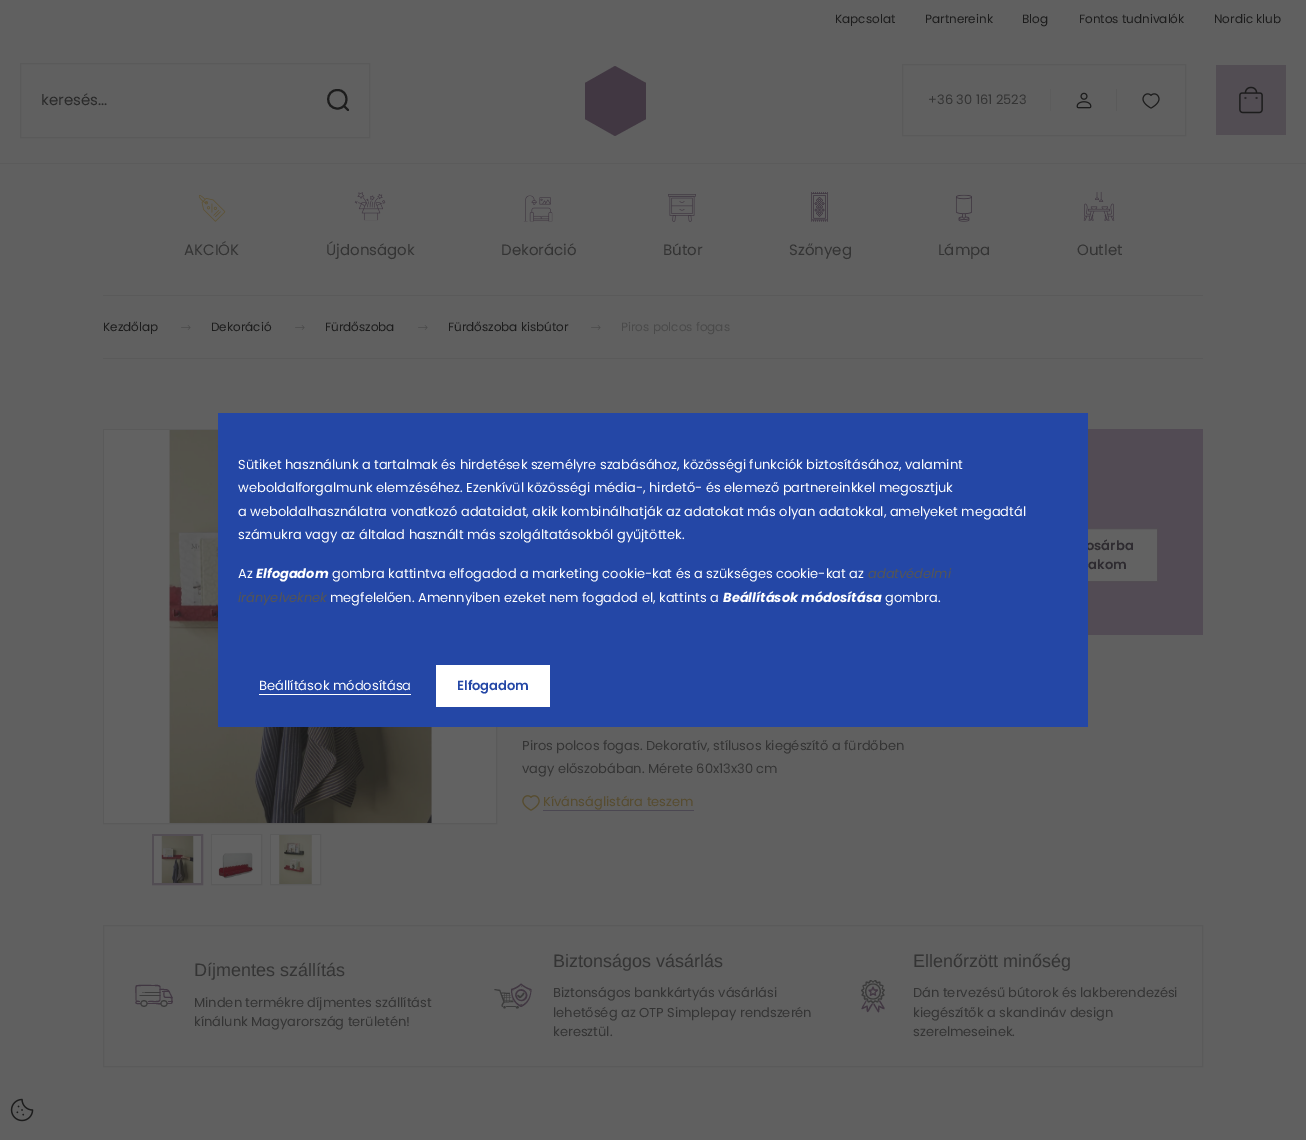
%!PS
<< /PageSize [1306 1140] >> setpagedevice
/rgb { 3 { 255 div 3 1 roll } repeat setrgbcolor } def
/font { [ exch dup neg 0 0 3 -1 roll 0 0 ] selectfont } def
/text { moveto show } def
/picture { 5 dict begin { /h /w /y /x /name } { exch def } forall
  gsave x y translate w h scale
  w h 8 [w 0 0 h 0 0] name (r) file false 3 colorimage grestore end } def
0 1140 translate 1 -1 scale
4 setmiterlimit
96 96 96 rgb
0 0 1306 1140 rectfill
91 91 91 rgb
0 163 1306 1 rectfill
90 90 90 rgb
20.5 63.5 349 74 rectstroke
28 28 28 rgb
2 setlinewidth
1 setlinecap
1 setlinejoin
348 110 moveto -4 -4 rlineto 337.5 108.5 moveto -12.5 0 -12.5 -18.5 0 -18.5 rcurveto 12 0 12 18.5 0 18.5 rcurveto closepath stroke
65 55 66 rgb
615 66 moveto -30 17 rlineto 0 36 rlineto 30 17 rlineto 31 -17 rlineto 0 -36 rlineto closepath fill
90 90 90 rgb
1 setlinewidth
0 setlinecap
0 setlinejoin
902.5 64.5 283 71 rectstroke
92 92 92 rgb
1050 89 1 22 rectfill
(img_01.rgb) 1076 92 16 17 picture
90 90 90 rgb
1116 89 1 22 rectfill
(img_02.rgb) 1142 93 18 16 picture
82 77 83 rgb
1216 65 70 70 rectfill
(img_03.rgb) 1239 86 24 28 picture
(img_04.rgb) 198 195 28 27 picture
(img_05.rgb) 354 192 32 29 picture
(img_06.rgb) 523 195 30 27 picture
(img_07.rgb) 668 194 28 28 picture
(img_08.rgb) 811 192 17 30 picture
(img_09.rgb) 955 194 17 28 picture
(img_10.rgb) 1083 191 32 30 picture
90 90 90 rgb
103 295 1100 1 rectfill
103 358 1100 1 rectfill
(img_11.rgb) 181 325 10 5 picture
(img_11.rgb) 295 325 10 5 picture
(img_11.rgb) 418 325 10 5 picture
(img_11.rgb) 591 325 10 5 picture
103.5 429.5 393 394 rectstroke
(img_12.rgb) 104 430 392 393 picture
82 77 83 rgb
2 setlinewidth
153 835 49 49 rectstroke
(img_13.rgb) 154 836 47 47 picture
90 90 90 rgb
1 setlinewidth
211.5 834.5 50 50 rectstroke
(img_14.rgb) 212 835 49 49 picture
270.5 834.5 50 50 rectstroke
(img_15.rgb) 271 835 49 49 picture
82 75 84 rgb
1088 429 115 206 rectfill
98 98 98 rgb
1088 529 69 52 rectfill
82 77 83 rgb
1052.5 528.5 105 53 rectstroke
(img_16.rgb) 522 795 18 16 picture
75 71 81 rgb
543 810 151 1 rectfill
90 90 90 rgb
103.5 925.5 1099 141 rectstroke
59 59 59 rgb
140 995 moveto -0.5 0 -0.5 1 0 1 rcurveto 20 0 rlineto 0.5 0 0.5 -1 0 -1 rcurveto closepath fill
143 992 moveto -0.5 0 -0.5 1 0 1 rcurveto 0.5 0 0.5 -1 0 -1 rcurveto closepath 145 992 moveto -0.5 0 -0.5 1 0 1 rcurveto 15 0 rlineto 0.5 0 0.5 -1 0 -1 rcurveto closepath eofill
65 55 66 rgb
164 990 moveto 0.5 0 0.5 -1 0 -1 rcurveto -0.5 0 -4.5 -0.5 -4.5 0.5 rcurveto 0.5 0.5 rlineto closepath 164.5 991.5 moveto 0 -0.5 -0.5 -1 -1 -0.5 rcurveto 0 2 rlineto 0 2 -0.5 5 2.5 5 rcurveto 4 0 rlineto 0.5 0 2 0.5 2.5 0 rcurveto 0.5 -1.5 -5.5 -1 -6.5 -1 rcurveto -0.5 0 rlineto -0.5 -0.5 -1 -1 -1 -1.5 rcurveto closepath fill
164 989 moveto -0.5 0 -0.5 0.5 0 1 rcurveto 3 0.5 rlineto 1.5 0.5 2 2 2.5 3 rcurveto 1.5 2.5 2 3.5 2 6.5 rcurveto 0 0 -0.5 2.5 0.5 2 rcurveto 1 0 0.5 -1 0.5 -1.5 rcurveto 0 -3.5 0 -3.5 -2 -7 rcurveto -1 -2.5 -2 -4.5 -5 -4.5 rcurveto closepath 139.5 1002 moveto 1.5 -1.5 -2 -0.5 -3 -1.5 rcurveto -0.5 -1 0 -7.5 0 -9 rcurveto 0 -5.5 -1 -5.5 4.5 -5.5 rcurveto 13.5 0 rlineto 7 0 5 0.5 5 7.5 rcurveto 0 8 1.5 7.5 -6 7.5 rcurveto -1.5 0 -6 -0.5 -5.5 1 rcurveto 4 0 rlineto 8 0 8.5 1.5 8.5 -6.5 rcurveto 0 -9 rlineto -1 -2 -4 -1.5 -6 -1.5 rcurveto -3 0 rlineto -2.5 0 -14 -0.5 -15.5 0.5 rcurveto -1 1.5 -0.5 6 -0.5 8 rcurveto 0 4 rlineto 0 2 0 4.5 2.5 4.5 rcurveto closepath fill
160 1003 moveto -0.5 0 -0.5 0.5 -0.5 1 rcurveto 0.5 1 3.5 0 4 0 rcurveto 5.5 0 rlineto 2 0 4 0 3.5 -2.5 rcurveto -0.5 -0.5 rlineto -1 0.5 0 2 -1 2 rcurveto closepath 162.5 991 moveto -0.5 0 -0.5 1 0 1 rcurveto 1 0 6.5 0 7 -0.5 rcurveto 0 0 0 -0.5 -0.5 -0.5 rcurveto closepath fill
139.5 1002 moveto 1.5 -1.5 -3.5 -1.5 -4 0 rcurveto -1 3 5 2 5.5 2 rcurveto 15 0 rlineto 0.5 0 4.5 1 4.5 -0.5 rcurveto 0 -0.5 rlineto -23.5 0 rlineto -0.5 0 -1 -1 -0.5 -1 rcurveto closepath fill
98 98 98 rgb
167 1003.5 moveto 0 -3.5 -6 -3.5 -6 0 rcurveto 0 4 6 4 6 0 rcurveto closepath fill
59 59 59 rgb
167.5 1003.5 moveto 0 -4.5 -7 -4.5 -7 0 rcurveto 0 4.5 7 4.5 7 0 rcurveto closepath 166.5 1003.5 moveto 0 3 -5 3 -5 0 rcurveto 0 -3 5 -3 5 0 rcurveto closepath eofill
98 98 98 rgb
147 1003.5 moveto 0 -3.5 -6 -3.5 -6 0 rcurveto 0 4 6 4 6 0 rcurveto closepath fill
59 59 59 rgb
147.5 1003.5 moveto 0 -4.5 -7 -4.5 -7 0 rcurveto 0 4.5 7 4.5 7 0 rcurveto closepath 146.5 1003.5 moveto 0 3 -5 3 -5 0 rcurveto 0 -3 5 -3 5 0 rcurveto closepath eofill
65 55 66 rgb
172 1002 moveto 0.5 0 0.5 -1 0 -1 rcurveto -3.5 0 rlineto -0.5 0.5 -0.5 1 0 1 rcurveto closepath fill
59 59 59 rgb
502.5 1005.5 moveto 0.5 0.5 rlineto -0.5 1 rlineto -2 -1 0 -4 1 -5 rcurveto -4 -11 rlineto -5 -1 rlineto -1 -1.5 3 -0.5 3 -0.5 rcurveto 3.5 0.5 2.5 0 3.5 3 rcurveto 9 0.5 rlineto 0 1 rlineto -0.5 0 rlineto 0 1 rlineto 1 0 rlineto 0 0.5 rlineto -1 0 rlineto 0 2 rlineto 1.5 0 rlineto 0.5 0.5 rlineto -2 0 rlineto 0 2 rlineto 2.5 0 rlineto 0 -1 rlineto 0.5 1.5 rlineto 0 0.5 rlineto 0.5 0 rlineto 0.5 1 rlineto -9 0.5 rlineto -1 1 -2 2.5 -2 3 rcurveto closepath 501.5 993.5 moveto 0.5 1.5 rlineto 2 0 rlineto 0 -1.5 rlineto closepath 504.5 993.5 moveto 0 1.5 rlineto 2 0 rlineto 0 -1 rlineto closepath 507 994 moveto 0 1 rlineto 2 0 rlineto 0 -1 rlineto closepath 502.5 995.5 moveto 0.5 2 rlineto 1 0 rlineto 0 -2 rlineto closepath 504.5 995.5 moveto 0 2 rlineto 2 0 rlineto 0 -2 rlineto closepath 507 995.5 moveto 0 2 rlineto 2 0 rlineto 0 -2 rlineto closepath 503.5 998 moveto 0.5 1.5 rlineto 0 -1.5 rlineto closepath 504.5 998 moveto 0 2 rlineto 2 0 rlineto 0 -2 rlineto closepath 507 998 moveto 0 2 rlineto 2 0 rlineto 0 -2 rlineto closepath 504.5 1000.5 moveto 0 1 rlineto 2 0 rlineto 0 -1 rlineto closepath 507 1000.5 moveto 0 1 rlineto 2 0 rlineto 0 -1 rlineto closepath 509.5 1000.5 moveto 0 1 rlineto 2.5 -0.5 rlineto 0 -0.5 rlineto closepath 506.5 1007 moveto -0.5 -1 rlineto 10 0 rlineto -0.5 1 rlineto closepath 504.5 1006 moveto 1.5 0 1.5 2.5 0 2.5 rcurveto -1.5 0 -1.5 -2.5 0 -2.5 rcurveto closepath 518.5 1006.5 moveto 1.5 2 -3 3 -2.5 0.5 rcurveto 0.5 -0.5 1 -1 1.5 -1 rcurveto closepath eofill
65 55 66 rgb
531.5 989 moveto -0.5 8 -2.5 14.5 -10.5 18 rcurveto -7.5 -3.5 -10 -10 -10 -18 rcurveto 4 -1 7.5 -3 10 -5.5 rcurveto 3 2.5 6.5 4.5 10 5.5 rcurveto closepath 521 1005.5 moveto 8.5 -3.5 9.5 -12 9.5 -15.5 rcurveto -4.5 -1 -8 -4 -9.5 -5 rcurveto -1 1 -4.5 4 -9 5 rcurveto 0 3.5 1 12 9 15.5 rcurveto closepath 521 986.5 moveto 0 -0.5 0.5 -0.5 0.5 0 rcurveto 0 0.5 -0.5 0.5 -0.5 0 rcurveto closepath 517 991 moveto 5.5 -5.5 14 3 8.5 8.5 rcurveto -5.5 5 -14 -3 -8.5 -8.5 rcurveto closepath 513 990.5 moveto 0.5 0 0.5 0.5 0 0.5 rcurveto -0.5 0 -0.5 -0.5 0 -0.5 rcurveto closepath 529.5 991 moveto -0.5 0 -0.5 -0.5 0 -0.5 rcurveto 0.5 0 0.5 0.5 0 0.5 rcurveto closepath 524.5 992 moveto -6.5 -4.5 -10.5 3.5 -6 7 rcurveto 4 3.5 10 -3 6 -7 rcurveto closepath 521 1004 moveto 1 0 1 1 0 1 rcurveto -0.5 0 -0.5 -1 0 -1 rcurveto closepath eofill
59 59 59 rgb
519.5 998 moveto -0.5 -0.5 -3 -2 -2 -3 rcurveto 1 -0.5 2 1 2.5 1.5 rcurveto 2.5 -2.5 rlineto 0 -0.5 1.5 -2 2 -1 rcurveto 0 0.5 rlineto 0 0.5 -4 5.5 -5 4.5 rcurveto closepath fill
885 990 moveto -2 2.5 rlineto 2 3.5 2 2.5 -1 4 rcurveto 0 4 0.5 3 -3 3 rcurveto -1 3.5 -0.5 3.5 -4 2 rcurveto -2.5 2.5 -1.5 2.5 -4 0 rcurveto -3.5 1.5 -3 1.5 -4 -2 rcurveto -3.5 0 -3 1 -3 -3 rcurveto -3 -1.5 -3 -0.5 -1 -4 rcurveto -2.5 -2.5 -2.5 -2 0.5 -4 rcurveto -1.5 -3.5 -1.5 -3 2 -4 rcurveto 0.5 -3.5 -0.5 -3 3.5 -2.5 rcurveto 1 -2 rlineto 1 0 rlineto 2 1.5 rlineto 2 -1.5 rlineto 1 0 rlineto 1 2 rlineto 4 -0.5 3 -1 3.5 2.5 rcurveto 3.5 1 3.5 0.5 2 4 rcurveto closepath 882 992 moveto 1.5 -1.5 rlineto -2.5 -2 -2 -1 -1 -4.5 rcurveto -3.5 -0.5 -3 0 -3 -3 rcurveto -3.5 0.5 -2.5 1 -4.5 -2 rcurveto -2.5 2 -1.5 2 -4 0 rcurveto -2 3 -1 2.5 -4.5 2 rcurveto 0 3 0.5 2.5 -3 3 rcurveto 1 3.5 1.5 2.5 -1 4.5 rcurveto 2 2.5 2 1.5 0.5 4.5 rcurveto 3 1 2.5 0.5 2 3.5 rcurveto 3.5 0 2.5 -0.5 3.5 3 rcurveto 3 -1.5 2 -2 4.5 0.5 rcurveto 2.5 -2 1.5 -2 4.5 -0.5 rcurveto 1 -3.5 0 -3 3.5 -3 rcurveto -0.5 -3 -1 -2.5 2 -3.5 rcurveto 0 -0.5 -1.5 -2 -1 -3 rcurveto closepath eofill
873 983.5 moveto 10.5 0 10.5 16 0 16 rcurveto -10.5 0 -10.5 -16 0 -16 rcurveto closepath 873 998.5 moveto 9 0 9 -14 0 -14 rcurveto -9 0 -9 14 0 14 rcurveto closepath eofill
65 55 66 rgb
872.5 1003.5 moveto 0.5 0.5 -0.5 2 -0.5 2 rcurveto -1 1 -3.5 7 -4.5 6.5 rcurveto -1 0 -1 -4 -1 -5 rcurveto -4 2 -6.5 4 -3.5 -1.5 rcurveto 3 -5 rlineto 0.5 -0.5 1 0 0.5 0.5 rcurveto -3.5 6.5 rlineto 5.5 -2.5 4.5 -3 5 2.5 rcurveto 0.5 -1 3.5 -7 4.5 -6.5 rcurveto closepath 880 1000.5 moveto 0 0 -0.5 0 -1 0.5 rcurveto 4 6.5 rlineto -5.5 -2.5 -4.5 -3 -5 2.5 rcurveto -3.5 -6 rlineto -0.5 -0.5 rlineto -1 0.5 0 2 0 2 rcurveto 2.5 4 rlineto 3 5.5 2.5 2 3 -2.5 rcurveto 0.5 0.5 4 2.5 5 2 rcurveto 0 -1 rlineto closepath fill
878 990 moveto 0 1 -2 2 -2.5 2.5 rcurveto 1 4.5 1 3.5 -2.5 2 rcurveto -3.5 2 -3.5 2 -2.5 -2 rcurveto -3 -3 -3 -2.5 1 -3 rcurveto 1.5 -4 1.5 -4 3 0 rcurveto 1 0 3 -0.5 3.5 0.5 rcurveto closepath 875 992 moveto 1 -1.5 rlineto -2.5 0 -2 0.5 -3 -2 rcurveto -1 2.5 -0.5 2 -3 2 rcurveto 2 2 1.5 1 1 3.5 rcurveto 2.5 -1 1.5 -1 4 0 rcurveto 0 -0.5 -1 -1.5 0 -2 rcurveto closepath eofill
(img_17.rgb) 10 1098 24 24 picture
/Poppins-Regular 12 font
28 28 28 rgb
(Kapcsolat) 835 23 text
(Partnereink) 925 23 text
(Blog) 1022 23 text
(Fontos tudnivalók) 1079 23 text
(Nordic klub) 1214 23 text
/Poppins-Regular 15 font
42 42 42 rgb
(keresés...) 41 105 text
/Poppins-Regular 13 font
52 52 52 rgb
(+36 30 161 2523) 928 104 text
/Poppins-Regular 15 font
(AKCIÓK) 184 255 text
(Újdonságok) 326 255 text
(Dekoráció) 501 255 text
(Bútor) 663 255 text
(Szőnyeg) 789 255 text
(Lámpa) 938 255 text
(Outlet) 1077 255 text
/Poppins-Regular 12 font
28 28 28 rgb
(Kezdőlap) 103 331 text
(Dekoráció) 211 331 text
(Fürdőszoba) 325 331 text
(Fürdőszoba kisbútor) 448 331 text
74 74 74 rgb
(Piros polcos fogas) 621 331 text
/Poppins-SemiBold 13.1 font
46 43 48 rgb
(osárba) 1086 550 text
(akom) 1088 569 text
/Poppins-Regular 13 font
52 52 52 rgb
(Piros polcos fogas. Dekoratív, stílusos kiegészítő a fürdőben) 522 750 text
(vagy előszobában. Mérete 60x13x30 cm) 522 773 text
87 76 47 rgb
(Kívánságlistára teszem) 543 806 text
/LiberationSans-Regular 18 font
52 52 52 rgb
(Díjmentes szállítás) 194 976 text
/Poppins-Regular 13 font
(Minden termékre díjmentes szállítást) 194 1007 text
(kínálunk Magyarország területén!) 194 1026 text
/LiberationSans-Regular 18 font
(Biztonságos vásárlás) 553 967 text
/Poppins-Regular 13 font
(Biztonságos bankkártyás vásárlási) 553 997 text
(lehetőség az OTP Simplepay rendszerén) 553 1017 text
(keresztül.) 553 1036 text
/LiberationSans-Regular 18 font
(Ellenőrzött minőség) 913 967 text
/Poppins-Regular 13 font
(Dán tervezésű bútorok és lakberendezési) 913 997 text
(kiegészítők a skandináv design) 913 1017 text
(szerelmeseinek.) 913 1036 text
36 71 166 rgb
218 413 870 314 rectfill
255 255 255 rgb
(Sütiket használunk a tartalmak és hirdetések személyre szabásához, közösségi funkciók biztosításához, valamint) 238 469 text
(weboldalforgalmunk elemzéséhez. Ezenkívül közösségi média-, hirdető- és elemező partnereinkkel megosztjuk) 238 492 text
(a weboldalhasználatra vonatkozó adataidat, akik kombinálhatják az adatokat más olyan adatokkal, amelyeket megadtál) 238 516 text
(számukra vagy az általad használt más szolgáltatásokból gyűjtöttek.) 238 539 text
(Az) 238 578 text
/Poppins-BoldItalic 13 font
(Elfogadom) 256 578 text
/Poppins-Regular 13 font
(gombra kattintva elfogadod a marketing cookie-kat és a szükséges cookie-kat az) 332 578 text
/Poppins-Italic 13 font
85 85 85 rgb
(adatvédelmi) 868 578 text
(irányelveknek) 238 602 text
/Poppins-Regular 13 font
255 255 255 rgb
(megfelelően. Amennyiben ezeket nem fogadod el, kattints a) 330 602 text
/Poppins-BoldItalic 13 font
(Beállítások módosítása) 723 602 text
/Poppins-Regular 13 font
(gombra.) 885 602 text
/Poppins-Regular 13.1 font
(Beállítások módosítása) 259 690 text
259 694 152 1 rectfill
436 665 114 42 rectfill
/Poppins-SemiBold 13.1 font
36 71 166 rgb
(Elfogadom) 457 690 text
showpage
